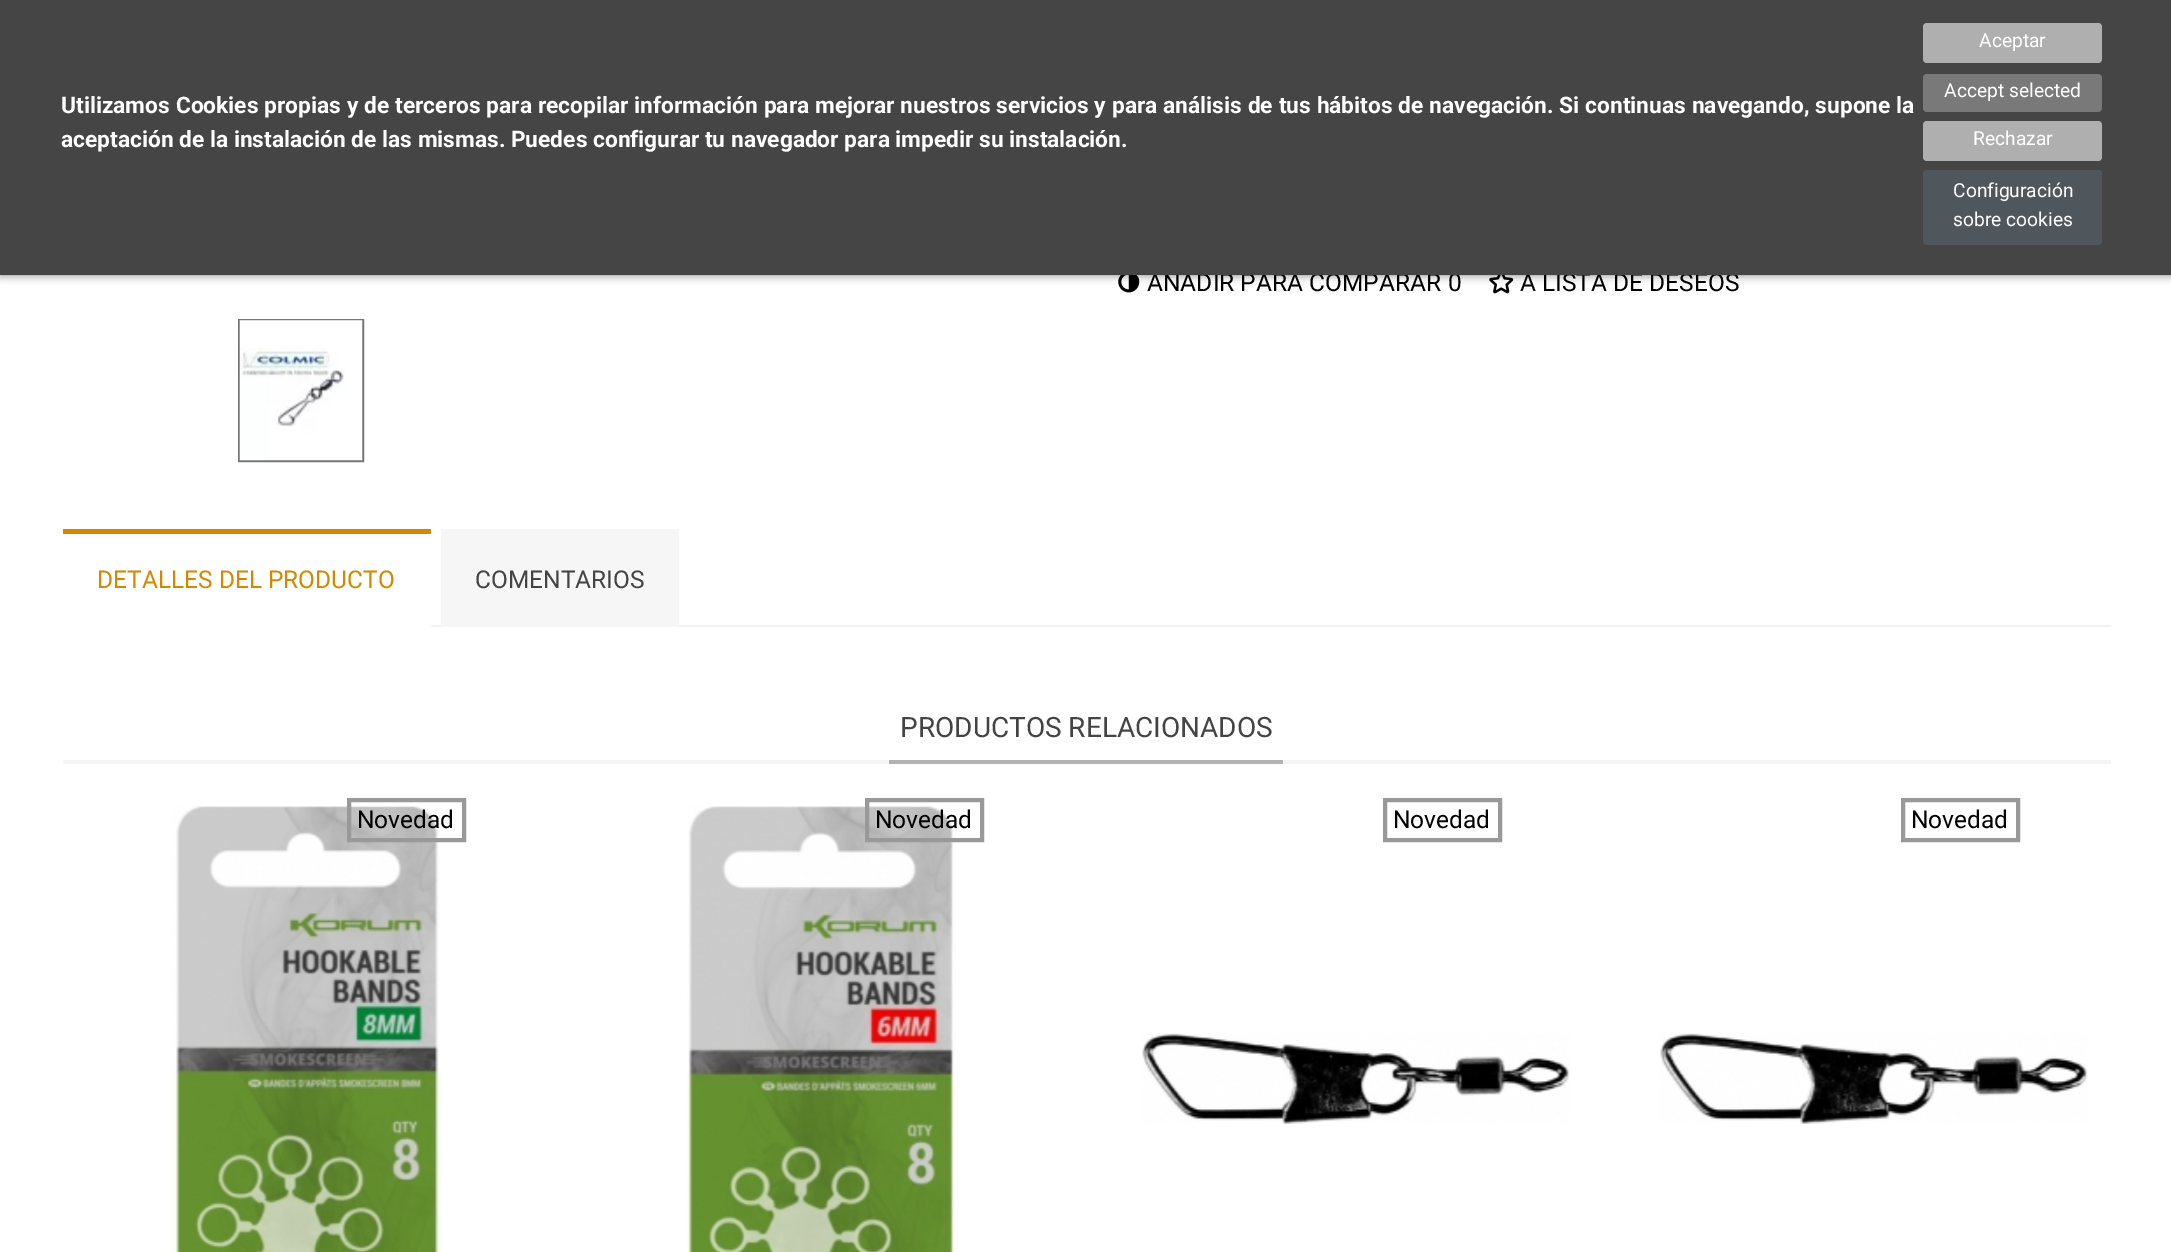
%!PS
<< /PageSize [2171 1252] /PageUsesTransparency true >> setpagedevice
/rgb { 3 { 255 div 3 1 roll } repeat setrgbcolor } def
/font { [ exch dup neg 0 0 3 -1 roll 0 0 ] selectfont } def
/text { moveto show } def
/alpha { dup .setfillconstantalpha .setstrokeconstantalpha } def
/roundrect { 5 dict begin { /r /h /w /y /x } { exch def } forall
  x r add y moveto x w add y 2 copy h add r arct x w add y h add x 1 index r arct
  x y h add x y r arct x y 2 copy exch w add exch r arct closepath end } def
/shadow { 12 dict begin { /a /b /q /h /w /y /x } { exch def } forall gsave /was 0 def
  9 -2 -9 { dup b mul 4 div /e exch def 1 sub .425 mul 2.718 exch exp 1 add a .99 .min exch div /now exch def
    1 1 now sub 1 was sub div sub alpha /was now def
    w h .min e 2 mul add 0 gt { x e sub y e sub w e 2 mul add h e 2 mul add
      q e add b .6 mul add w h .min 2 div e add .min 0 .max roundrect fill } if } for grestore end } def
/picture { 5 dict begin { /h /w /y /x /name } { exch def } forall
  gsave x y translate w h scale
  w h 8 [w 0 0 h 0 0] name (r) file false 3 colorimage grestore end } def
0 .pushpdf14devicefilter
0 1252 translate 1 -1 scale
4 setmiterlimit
255 255 255 rgb
0 0 2171 1252 rectfill
(img_01.rgb) 1118 275 22 18 picture
(img_02.rgb) 1489 275 25 19 picture
0 0 0 rgb
0 0 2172 275 0 4.5 0.5 shadow
119 119 119 rgb
2 setlinewidth
239 320 124 141 rectstroke
(img_03.rgb) 239 320 124 141 picture
242 242 242 rgb
431 625 1680 2 rectfill
212 135 1 rgb
63 529 368 5 rectfill
246 246 246 rgb
441 529 238 98 rectfill
244 245 246 rgb
63 760 2048 4 rectfill
178 178 178 rgb
889 760 394 4 rectfill
(img_04.rgb) 172 806 268 446 picture
153 153 153 rgb
4 setlinewidth
349 800 115 40 rectstroke
(img_05.rgb) 687 806 269 446 picture
867 800 115 40 rectstroke
1385 800 115 40 rectstroke
(img_06.rgb) 1142 1033 428 91 picture
1903 800 115 40 rectstroke
(img_07.rgb) 1660 1033 428 91 picture
/Roboto-Regular 24.5 font
0 0 0 rgb
(AÑADIR PARA COMPARAR) 1147 291 text
(0) 1448 291 text
(A LISTA DE DESEOS) 1520 291 text
69 69 69 rgb
0 0 2171 275 rectfill
80 87 92 rgb
1923 170 179 75 4 roundrect fill
/Roboto-Regular 19.25 font
255 255 255 rgb
(sobre cookies) 1953 226 text
(Configuración) 1953 197 text
175 175 175 rgb
1923 121 179 40 4 roundrect fill
255 255 255 rgb
(Rechazar) 1973 145 text
121 121 121 rgb
1923 74 179 38 4 roundrect fill
255 255 255 rgb
(Accept selected) 1944 97 text
175 175 175 rgb
1923 23 179 40 4 roundrect fill
255 255 255 rgb
(Aceptar) 1979 47 text
/Roboto-Bold 22.75 font
(aceptación de la instalación de las mismas. Puedes configurar tu navegador para impedir su instalación.) 61 147 text
61 113 moveto 0.25 0 32 (Utilizamos Cookies propias y de terceros para recopilar información para mejorar nuestros servicios y para análisis de tus hábitos de navegación. Si continuas navegando, supone la) widthshow
/Roboto-Regular 24.5 font
212 135 1 rgb
(DETALLES DEL PRODUCTO) 97 588 text
68 68 68 rgb
(COMENTARIOS) 475 588 text
/Roboto-Regular 28 font
(PRODUCTOS RELACIONADOS) 900 737 text
/Roboto-Regular 24.5 font
0 0 0 rgb
(Novedad) 357 828 text
(Novedad) 875 828 text
(Novedad) 1393 828 text
(Novedad) 1911 828 text
.poppdf14devicefilter showpage
